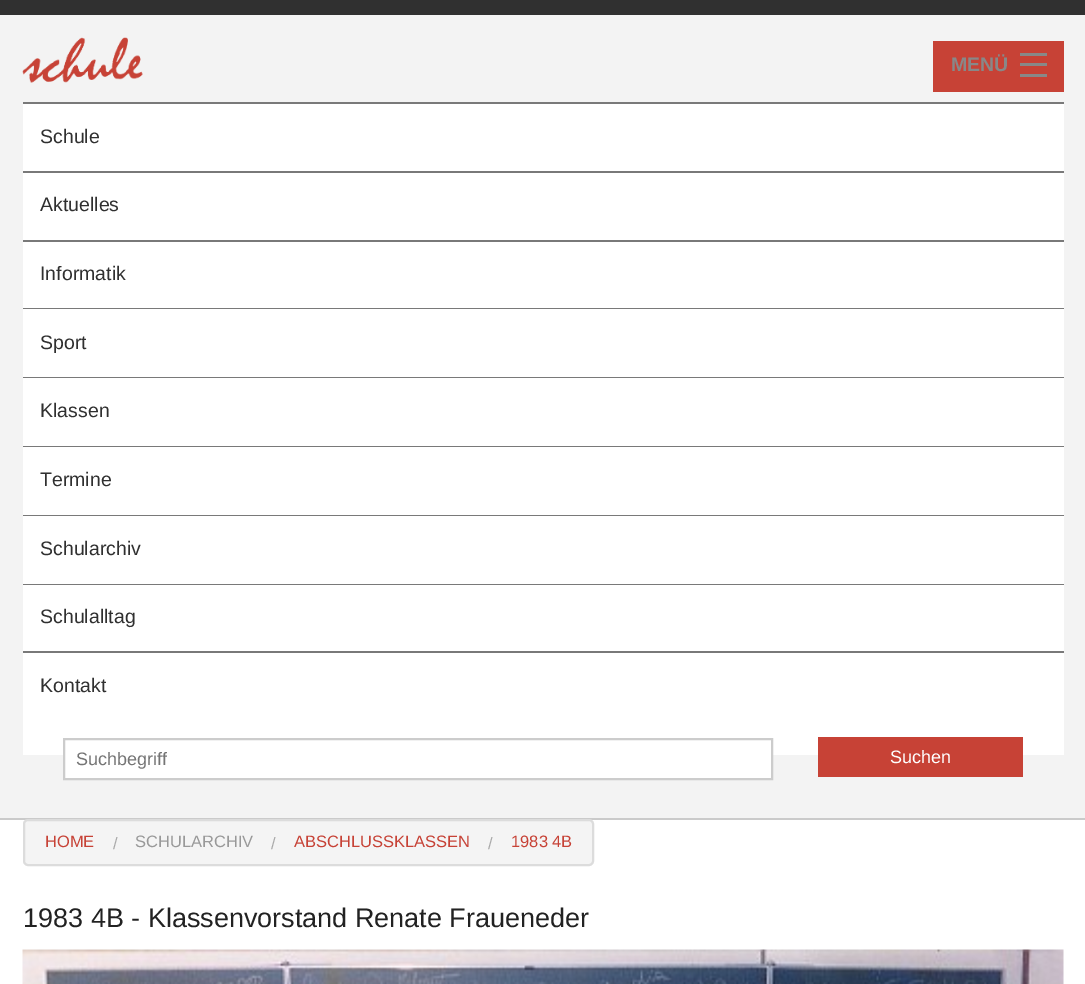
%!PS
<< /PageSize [1085 984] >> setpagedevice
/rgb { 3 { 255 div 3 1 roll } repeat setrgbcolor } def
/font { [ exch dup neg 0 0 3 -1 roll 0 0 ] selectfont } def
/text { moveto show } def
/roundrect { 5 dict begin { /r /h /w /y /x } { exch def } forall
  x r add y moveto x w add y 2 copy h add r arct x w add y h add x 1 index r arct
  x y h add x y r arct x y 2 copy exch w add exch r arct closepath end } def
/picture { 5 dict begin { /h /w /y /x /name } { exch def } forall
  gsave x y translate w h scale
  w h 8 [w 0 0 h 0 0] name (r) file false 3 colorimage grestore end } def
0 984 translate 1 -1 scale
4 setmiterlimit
255 255 255 rgb
0 0 1085 984 rectfill
48 48 48 rgb
0 0 1085 15 rectfill
243 243 243 rgb
0 15 1085 803 rectfill
(img_01.rgb) 22 37 121 46 picture
199 66 54 rgb
933 41 131 51 rectfill
136 136 136 rgb
1020 74 27 3 rectfill
1020 63 27 3 rectfill
1020 53 27 3 rectfill
121 121 121 rgb
23 102 1041 2 rectfill
255 255 255 rgb
23 104 1041 67 rectfill
121 121 121 rgb
23 171 1041 2 rectfill
255 255 255 rgb
23 173 1041 67 rectfill
121 121 121 rgb
23 240 1041 2 rectfill
255 255 255 rgb
23 242 1041 66 rectfill
121 121 121 rgb
23 308 1041 1 rectfill
255 255 255 rgb
23 309 1041 68 rectfill
121 121 121 rgb
23 377 1041 1 rectfill
255 255 255 rgb
23 378 1041 68 rectfill
121 121 121 rgb
23 446 1041 1 rectfill
255 255 255 rgb
23 447 1041 68 rectfill
121 121 121 rgb
23 515 1041 1 rectfill
255 255 255 rgb
23 516 1041 68 rectfill
121 121 121 rgb
23 584 1041 1 rectfill
255 255 255 rgb
23 585 1041 66 rectfill
121 121 121 rgb
23 651 1041 2 rectfill
255 255 255 rgb
23 653 1041 102 rectfill
65 755 706 23 rectfill
204 204 204 rgb
2 setlinewidth
64 739 708 40 rectstroke
199 66 54 rgb
818 737 205 40 rectfill
202 202 202 rgb
0 818 1085 2 rectfill
244 244 244 rgb
24 820 569 45 4 roundrect gsave fill grestore
220 220 220 rgb
stroke
(img_02.rgb) 22 949 1042 35 picture
/LiberationSans-Bold 19.5 font
136 136 136 rgb
(MENÜ) 951 71 text
/LiberationSans-Regular 19.5 font
48 48 48 rgb
(Schule) 40 143 text
(Aktuelles) 40 211 text
(Informatik) 40 280 text
(Sport) 40 349 text
(Klassen) 40 417 text
(Termine) 40 486 text
(Schularchiv) 40 555 text
(Schulalltag) 40 623 text
(Kontakt) 40 692 text
/LiberationSans-Regular 18 font
117 117 117 rgb
(Suchbegriff) 76 765 text
255 255 255 rgb
(Suchen) 890 763 text
/LiberationSans-Regular 16.5 font
199 66 54 rgb
(HOME) 45 847 text
170 170 170 rgb
(/) 113 849 text
153 153 153 rgb
(SCHULARCHIV) 135 847 text
170 170 170 rgb
(/) 271 849 text
199 66 54 rgb
(ABSCHLUSSKLASSEN) 294 847 text
170 170 170 rgb
(/) 488 849 text
199 66 54 rgb
(1983 4B) 511 847 text
/LiberationSans-Regular 27 font
34 34 34 rgb
(1983 4B - Klassenvorstand Renate Fraueneder) 23 927 text
showpage
